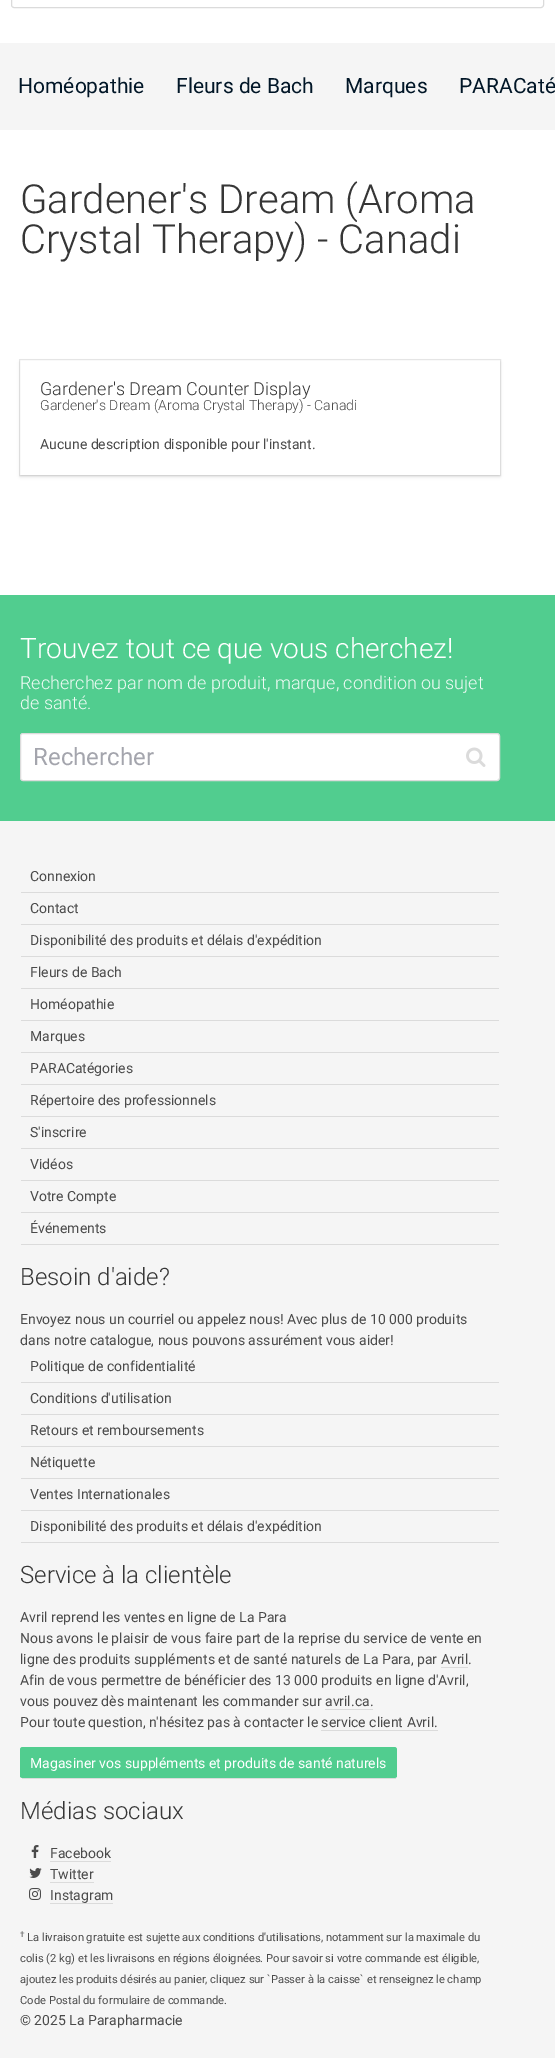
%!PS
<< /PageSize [555 2058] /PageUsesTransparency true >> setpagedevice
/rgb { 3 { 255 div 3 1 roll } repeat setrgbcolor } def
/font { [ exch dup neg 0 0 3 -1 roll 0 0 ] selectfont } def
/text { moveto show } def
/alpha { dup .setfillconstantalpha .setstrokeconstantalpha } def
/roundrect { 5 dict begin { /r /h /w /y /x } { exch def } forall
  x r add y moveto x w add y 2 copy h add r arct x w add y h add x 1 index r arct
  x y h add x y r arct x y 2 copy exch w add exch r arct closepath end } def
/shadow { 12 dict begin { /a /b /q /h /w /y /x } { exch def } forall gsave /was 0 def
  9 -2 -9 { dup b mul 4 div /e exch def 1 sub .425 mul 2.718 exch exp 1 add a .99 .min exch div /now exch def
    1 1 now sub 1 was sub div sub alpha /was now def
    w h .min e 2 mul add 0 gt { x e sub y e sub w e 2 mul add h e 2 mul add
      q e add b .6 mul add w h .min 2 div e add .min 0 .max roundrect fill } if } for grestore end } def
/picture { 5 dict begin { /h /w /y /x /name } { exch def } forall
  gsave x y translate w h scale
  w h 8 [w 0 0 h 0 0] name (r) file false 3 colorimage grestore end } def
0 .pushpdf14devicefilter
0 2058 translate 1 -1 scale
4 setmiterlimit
255 255 255 rgb
0 0 555 2058 rectfill
219 219 219 rgb
11.5 -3.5 532 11 2.5 roundrect stroke
245 245 245 rgb
0 43 555 87 rectfill
231 231 231 rgb
19.5 359.5 481 116 rectstroke
gsave
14 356 moveto 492 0 rlineto 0 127 rlineto -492 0 rlineto closepath 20 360 moveto 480 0 rlineto 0 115 rlineto -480 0 rlineto closepath eoclip newpath
10 10 10 rgb
20 362 480 115 0 1.5 0.1 shadow
grestore
81 205 143 rgb
0 595 555 226 rectfill
255 255 255 rgb
20.5 733.5 479 47 2.5 roundrect gsave fill grestore
219 219 219 rgb
stroke
(img_01.rgb) 466 747 20 20 picture
245 245 245 rgb
0 821 555 1237 rectfill
219 219 219 rgb
21 892 478 1 rectfill
21 924 478 1 rectfill
21 956 478 1 rectfill
21 988 478 1 rectfill
21 1020 478 1 rectfill
21 1052 478 1 rectfill
21 1084 478 1 rectfill
21 1116 478 1 rectfill
21 1148 478 1 rectfill
21 1180 478 1 rectfill
21 1212 478 1 rectfill
21 1244 478 1 rectfill
21 1382 478 1 rectfill
21 1414 478 1 rectfill
21 1446 478 1 rectfill
21 1478 478 1 rectfill
21 1510 478 1 rectfill
21 1542 478 1 rectfill
441 1667 27 1 rectfill
325 1709 48 1 rectfill
321 1730 117 1 rectfill
81 205 143 rgb
23 1747 moveto 371 0 rlineto 2 0 3 1 3 3 rcurveto 0 26 rlineto 0 1 -1 2 -3 2 rcurveto -371 0 rlineto -2 0 -3 -1 -3 -2 rcurveto 0 -26 rlineto 0 -2 1 -3 3 -3 rcurveto closepath fill
219 219 219 rgb
22 1778 374 1 rectfill
(img_02.rgb) 31 1845 8 13 picture
50 1861 61 1 rectfill
(img_03.rgb) 29 1868 13 10 picture
50 1882 44 1 rectfill
(img_04.rgb) 29 1888 12 12 picture
50 1903 63 1 rectfill
/Roboto-Regular 21 font
1 22 39 rgb
(Homéopathie) 18 93 text
(Fleurs de Bach) 176 93 text
(Marques) 345 93 text
(PARACaté) 459 93 text
/Roboto-Light 40 font
54 54 54 rgb
(Gardener's Dream \(Aroma) 20 213 text
(Crystal Therapy\) - Canadi) 20 253 text
/Roboto-Light 18 font
(Gardener's Dream Counter Display) 40 395 text
/Roboto-Light 14 font
74 74 74 rgb
(Gardener's Dream \(Aroma Crystal Therapy\) - Canadi) 40 410 text
/Roboto-Regular 14 font
(Aucune description disponible pour l'instant.) 40 449 text
/Roboto-Light 28 font
255 255 255 rgb
(Trouvez tout ce que vous cherchez!) 20 658 text
/Roboto-Light 18 font
238 250 244 rgb
(Recherchez par nom de produit, marque, condition ou sujet) 20 689 text
(de santé.) 20 709 text
/Roboto-Regular 24 font
164 165 173 rgb
(Rechercher) 33 765 text
/Roboto-Regular 14 font
74 74 74 rgb
(Connexion) 30 881 text
(Contact) 30 913 text
(Disponibilité des produits et délais d'expédition) 30 945 text
(Fleurs de Bach) 30 977 text
(Homéopathie) 30 1009 text
(Marques) 30 1041 text
(PARACatégories) 30 1073 text
(Répertoire des professionnels) 30 1105 text
(S'inscrire) 30 1137 text
(Vidéos) 30 1169 text
(Votre Compte) 30 1201 text
(Événements) 30 1233 text
/Roboto-Light 24 font
54 54 54 rgb
(Besoin d'aide?) 20 1285 text
/Roboto-Regular 14 font
74 74 74 rgb
(Envoyez nous un courriel ou appelez nous! Avec plus de 10 000 produits) 20 1324 text
(dans notre catalogue, nous pouvons assurément vous aider!) 20 1345 text
(Politique de confidentialité) 30 1371 text
(Conditions d'utilisation) 30 1403 text
(Retours et remboursements) 30 1435 text
(Nétiquette) 30 1467 text
(Ventes Internationales) 30 1499 text
(Disponibilité des produits et délais d'expédition) 30 1531 text
/Roboto-Light 24 font
54 54 54 rgb
(Service à la clientèle) 20 1583 text
/Roboto-Regular 14 font
74 74 74 rgb
(Avril reprend les ventes en ligne de La Para) 20 1622 text
(Nous avons le plaisir de vous faire part de la reprise du service de vente en) 20 1643 text
(ligne des produits suppléments et de santé naturels de La Para, par Avril.) 20 1664 text
(Afin de vous permettre de bénéficier des 13 000 produits en ligne d'Avril,) 20 1685 text
(vous pouvez dès maintenant les commander sur avril.ca.) 20 1706 text
(Pour toute question, n'hésitez pas à contacter le service client Avril.) 20 1727 text
255 255 255 rgb
(Magasiner vos suppléments et produits de santé naturels) 30 1768 text
/Roboto-Light 24 font
54 54 54 rgb
(Médias sociaux) 20 1819 text
/Roboto-Regular 14 font
74 74 74 rgb
(Facebook) 50 1858 text
(Twitter) 50 1879 text
(Instagram) 50 1900 text
/Roboto-Regular 8 font
(†) 20 1937 text
/Roboto-Regular 11.2 font
(La livraison gratuite est sujette aux conditions d'utilisations, notamment sur la maximale du) 27 1941 text
(colis \(2 kg\) et les livraisons en régions éloignées. Pour savoir si votre commande est éligible,) 20 1962 text
(ajoutez les produits désirés au panier, cliquez sur `Passer à la caisse` et renseignez le champ) 20 1983 text
(Code Postal du formulaire de commande.) 20 2004 text
/Roboto-Regular 14 font
(© 2025 La Parapharmacie) 20 2025 text
.poppdf14devicefilter showpage
